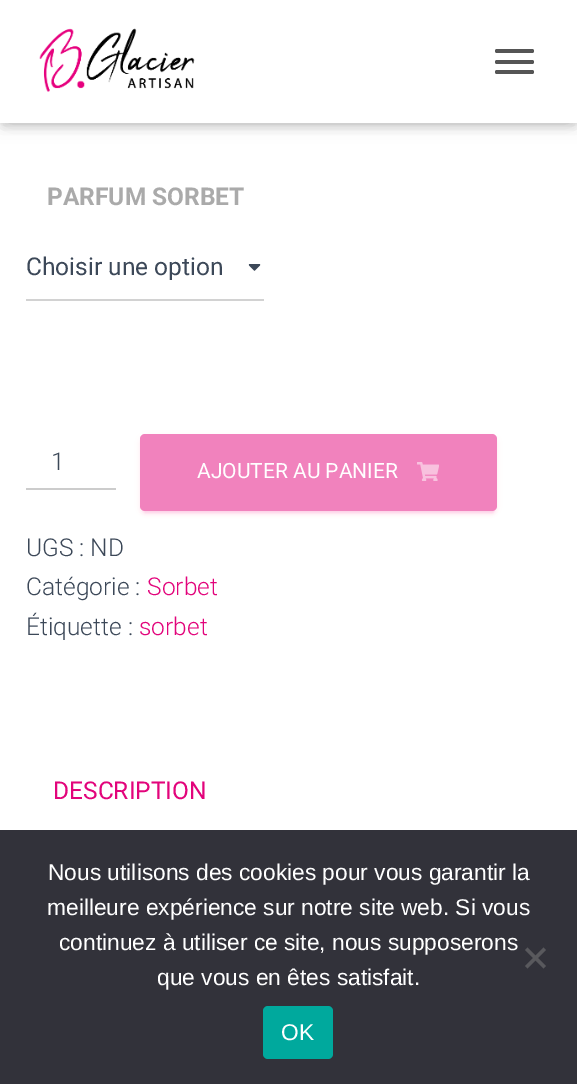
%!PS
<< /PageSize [577 1084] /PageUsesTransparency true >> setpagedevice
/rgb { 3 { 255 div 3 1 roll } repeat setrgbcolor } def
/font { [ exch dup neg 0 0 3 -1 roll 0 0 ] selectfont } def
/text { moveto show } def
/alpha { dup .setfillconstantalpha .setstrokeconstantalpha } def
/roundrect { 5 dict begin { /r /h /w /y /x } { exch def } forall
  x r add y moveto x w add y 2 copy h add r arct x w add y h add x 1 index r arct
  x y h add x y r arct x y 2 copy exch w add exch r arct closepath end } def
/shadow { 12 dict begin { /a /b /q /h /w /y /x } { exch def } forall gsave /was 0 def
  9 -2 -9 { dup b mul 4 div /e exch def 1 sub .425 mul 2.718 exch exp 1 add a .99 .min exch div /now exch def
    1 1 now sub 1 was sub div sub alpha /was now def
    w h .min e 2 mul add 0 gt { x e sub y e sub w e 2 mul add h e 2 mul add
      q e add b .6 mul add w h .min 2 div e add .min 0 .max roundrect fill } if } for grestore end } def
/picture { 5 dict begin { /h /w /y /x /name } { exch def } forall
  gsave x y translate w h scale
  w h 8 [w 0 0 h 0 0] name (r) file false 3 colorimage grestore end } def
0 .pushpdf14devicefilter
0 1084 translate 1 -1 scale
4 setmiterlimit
255 255 255 rgb
0 0 577 1084 rectfill
0 0 0 rgb
4 11 570 115 0 4.5 0.1 shadow
0 2 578 122 0 9 0.12 shadow
11 12 556 102 0 9 0.42 shadow
255 255 255 rgb
0 0 577 123 rectfill
(img_01.rgb) 39 28 156 64 picture
85 85 85 rgb
495 49 39 4 2 roundrect fill
495 60 39 4 2 roundrect fill
495 70 39 4 2 roundrect fill
210 210 210 rgb
26 299 238 2 rectfill
(img_02.rgb) 248 264 13 7 picture
204 204 204 rgb
26 488 90 2 rectfill
241 130 189 rgb
140 436 357 77 5 4.5 0.12 shadow
144 443 350 70 2 1 0.2 shadow
140 438 357 77 5 2 0.14 shadow
140 434 357 77 5 roundrect fill
(img_03.rgb) 417 462 22 19 picture
50 50 58 rgb
0 830 577 254 rectfill
89 89 93 rgb
543.5 947.5 moveto 2.5 2.5 rlineto -18.5 18.5 rlineto -2.5 -2.5 rlineto closepath fill
525 950 moveto 2.5 -2.5 rlineto 18.5 18.5 rlineto -2.5 2.5 rlineto closepath fill
0 169 157 rgb
263 1006 70 53 5 roundrect fill
/Roboto-Bold 24.5 font
170 170 170 rgb
(PARFUM SORBET) 47 205 text
/Roboto-Regular 24.5 font
60 72 88 rgb
(Choisir une option) 26 275 text
/Roboto-Light 24.5 font
(1) 51 470 text
/Roboto-Regular 21 font
255 255 255 rgb
(AJOUTER AU PANIER) 197 478 text
/Roboto-Light 24.5 font
60 72 88 rgb
(UGS : ND) 26 556 text
(Catégorie :) 26 595 text
226 4 123 rgb
(Sorbet) 147 595 text
60 72 88 rgb
(Étiquette :) 26 635 text
226 4 123 rgb
(sorbet) 139 635 text
/Roboto-Regular 24.5 font
(DESCRIPTION) 53 799 text
/LiberationSans-Regular 22.75 font
255 255 255 rgb
(Nous utilisons des cookies pour vous garantir la) 48 880 text
(meilleure expérience sur notre site web. Si vous) 47 915 text
(continuez à utiliser ce site, nous supposerons) 59 950 text
(que vous en êtes satisfait.) 157 985 text
(OK) 281 1040 text
.poppdf14devicefilter showpage
